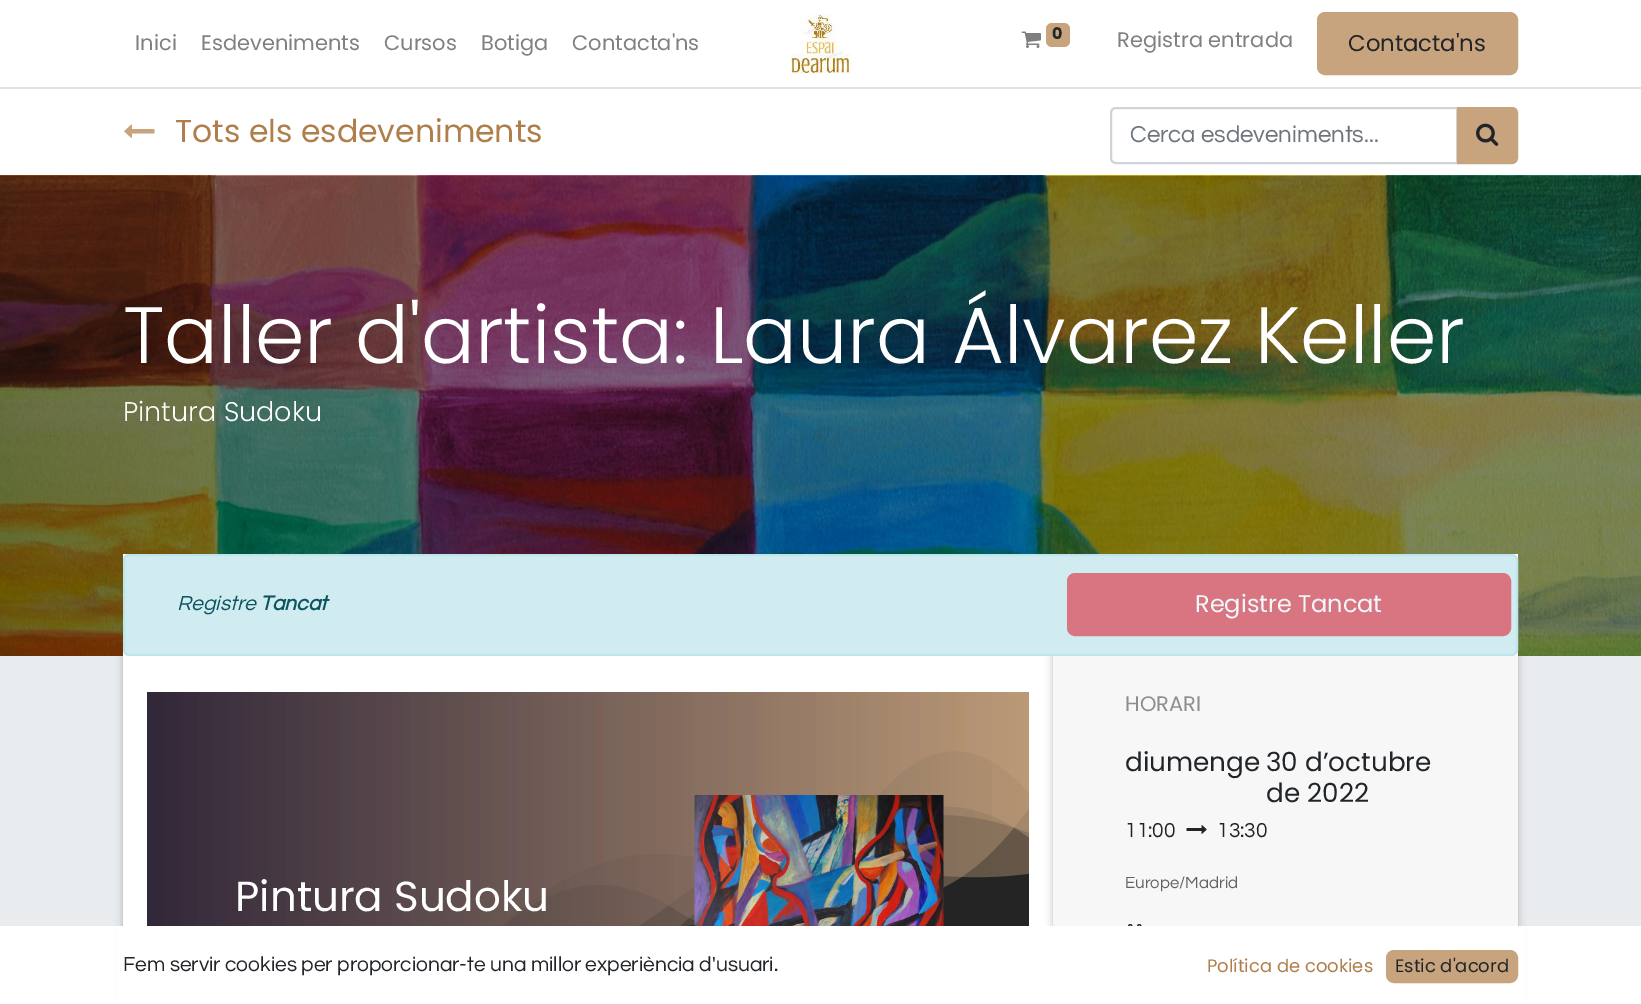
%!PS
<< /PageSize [1641 1004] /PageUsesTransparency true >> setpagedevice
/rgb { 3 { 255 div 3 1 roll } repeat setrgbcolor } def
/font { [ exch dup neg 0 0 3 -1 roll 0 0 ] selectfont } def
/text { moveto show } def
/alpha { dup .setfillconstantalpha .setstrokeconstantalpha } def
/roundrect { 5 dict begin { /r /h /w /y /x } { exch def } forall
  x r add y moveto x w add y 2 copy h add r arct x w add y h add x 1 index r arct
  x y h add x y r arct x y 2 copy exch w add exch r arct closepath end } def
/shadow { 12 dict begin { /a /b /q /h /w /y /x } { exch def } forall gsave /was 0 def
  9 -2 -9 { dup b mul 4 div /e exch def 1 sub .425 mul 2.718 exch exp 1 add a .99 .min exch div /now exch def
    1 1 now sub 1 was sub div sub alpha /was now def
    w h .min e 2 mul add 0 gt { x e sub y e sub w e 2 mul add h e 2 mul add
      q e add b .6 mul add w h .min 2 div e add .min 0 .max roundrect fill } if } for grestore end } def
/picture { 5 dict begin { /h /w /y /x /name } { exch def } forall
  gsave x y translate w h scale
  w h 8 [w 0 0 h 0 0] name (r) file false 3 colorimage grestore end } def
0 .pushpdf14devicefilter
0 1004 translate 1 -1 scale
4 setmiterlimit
255 255 255 rgb
0 0 1641 1004 rectfill
(img_01.rgb) 790 13 61 61 picture
(img_02.rgb) 1021 31 20 17 picture
200 164 126 rgb
1046 23 24 24 6 roundrect fill
1318 13 199 61 7 roundrect gsave fill grestore
2 setlinewidth
stroke
222 226 230 rgb
0 87 1641 2 rectfill
(img_03.rgb) 124 124 31 14 picture
206 212 218 rgb
1116 108 moveto 341 0 rlineto 0 55 rlineto -341 0 rlineto -3 0 -5 -2 -5 -5 rcurveto 0 -45 rlineto 0 -3 2 -5 5 -5 rcurveto closepath stroke
200 164 126 rgb
1458 108 moveto 54 0 rlineto 3 0 5 2 5 5 rcurveto 0 45 rlineto 0 3 -2 5 -5 5 rcurveto -54 0 rlineto closepath gsave fill grestore
stroke
(img_04.rgb) 1476 123 23 23 picture
(img_05.rgb) 0 175 1641 481 picture
255 255 255 rgb
123 554 1395 102 rectfill
209 236 241 rgb
124 555 1393 100 5 roundrect gsave fill grestore
190 229 235 rgb
stroke
216 117 129 rgb
1068 574 442 61 7 roundrect gsave fill grestore
stroke
233 236 239 rgb
0 656 1641 270 rectfill
gsave
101 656 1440 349 rectclip
0 0 0 rgb
123 620 930 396 0 4 0.25 shadow
grestore
255 255 255 rgb
123 656 930 270 rectfill
gsave
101 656 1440 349 rectclip
0 0 0 rgb
1053 620 465 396 0 4 0.25 shadow
grestore
247 247 247 rgb
1053 656 465 270 rectfill
(img_06.rgb) 1186 825 21 9 picture
(img_07.rgb) 1128 924 14 2 picture
37 36 36 rgb
147 692 882 234 rectfill
(img_08.rgb) 147 692 882 234 picture
(img_09.rgb) 694 795 250 131 picture
255 255 255 rgb
116 926 1409 78 rectfill
200 164 126 rgb
1387 951 130 31 7 roundrect gsave fill grestore
stroke
/Poppins-Regular 21 font
128 128 128 rgb
(Inici) 135 50 text
(Esdeveniments) 201 50 text
(Cursos) 384 50 text
(Botiga) 481 50 text
(Contacta'ns) 572 50 text
/Poppins-Bold 16 font
33 37 41 rgb
(0) 1052 39 text
/Poppins-Regular 21 font
128 128 128 rgb
(Registra entrada) 1117 47 text
/Poppins-Regular 22.75 font
33 37 41 rgb
(Contacta'ns) 1348 51 text
/Poppins-Regular 31.5 font
175 126 75 rgb
(Tots els esdeveniments) 175 142 text
/Questrial-Regular 24 font
108 117 125 rgb
(Cerca esdeveniments...) 1130 142 text
/Poppins-Light 79.75 font
255 255 255 rgb
(Taller d'artista: Laura Álvarez Keller) 123 363 text
/Poppins-Light 27 font
(Pintura Sudoku) 123 421 text
/Questrial-Italic 21 font
12 84 96 rgb
(Registre) 177 610 text
/Questrial-BoldItalic 21 font
(Tancat) 260 610 text
/Poppins-Regular 24 font
239 248 250 rgb
(Registre Tancat) 1195 612 text
/Poppins-Regular 21 font
140 142 144 rgb
(HORARI) 1125 711 text
/Poppins-Regular 26.25 font
33 37 41 rgb
(diumenge) 1125 771 text
(30 d’octubre) 1266 771 text
(de 2022) 1266 802 text
/Questrial-Regular 21 font
(11:00) 1125 837 text
(13:30) 1217 837 text
/Questrial-Regular 16.75 font
97 100 103 rgb
(Europe/Madrid) 1125 888 text
/Poppins-Regular 42 font
255 255 255 rgb
(Pintura Sudoku) 235 911 text
/Questrial-Regular 21 font
33 37 41 rgb
(Fem servir cookies per proporcionar-te una millor experiència d'usuari.) 123 971 text
/Poppins-Regular 18 font
175 126 75 rgb
(Política de cookies) 1207 972 text
33 37 41 rgb
(Estic d'acord) 1395 972 text
.poppdf14devicefilter showpage
